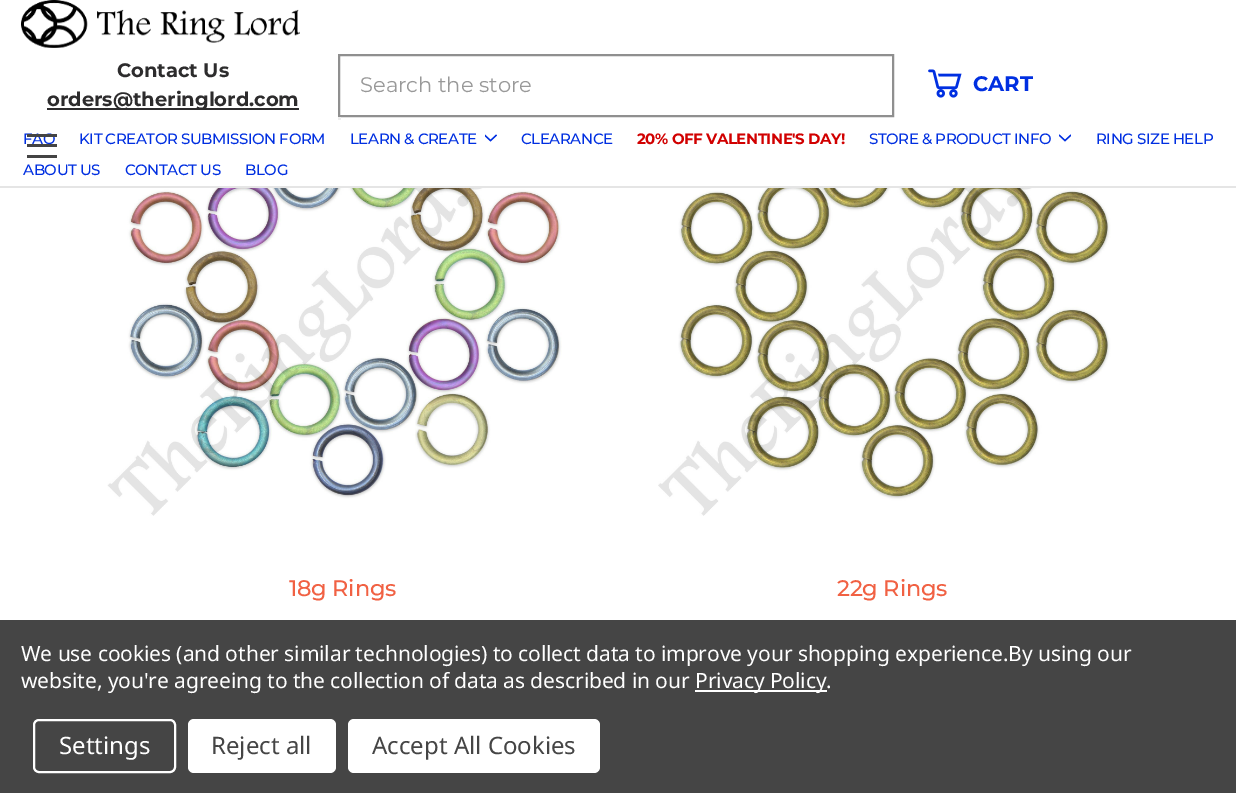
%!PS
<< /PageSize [1236 793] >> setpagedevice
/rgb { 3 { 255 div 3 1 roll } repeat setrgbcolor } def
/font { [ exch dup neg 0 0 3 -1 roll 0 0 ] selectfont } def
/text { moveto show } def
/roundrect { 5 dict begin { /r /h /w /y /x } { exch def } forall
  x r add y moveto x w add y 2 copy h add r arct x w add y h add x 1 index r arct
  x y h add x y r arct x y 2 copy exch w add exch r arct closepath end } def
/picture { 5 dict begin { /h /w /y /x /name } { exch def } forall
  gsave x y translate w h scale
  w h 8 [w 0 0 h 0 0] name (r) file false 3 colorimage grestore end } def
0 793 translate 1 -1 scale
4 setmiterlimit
255 255 255 rgb
0 0 1236 793 rectfill
229 229 229 rgb
0 186 1236 2 rectfill
(img_01.rgb) 21 0 279 48 picture
45 44 45 rgb
47 108 252 2 rectfill
143 143 143 rgb
2 setlinewidth
339 55 554 61 rectstroke
238 238 238 rgb
338 117 3 3 rectfill
(img_02.rgb) 928 69 34 29 picture
(img_03.rgb) 485 134 12 8 picture
(img_04.rgb) 1059 134 12 8 picture
68 68 68 rgb
27 155 30 3 rectfill
(img_05.rgb) 107 188 468 328 picture
(img_06.rgb) 658 188 467 328 picture
69 69 69 rgb
0 620 1236 173 rectfill
255 255 255 rgb
695 690 132 2 rectfill
34 720 141 52 5 roundrect stroke
188 719 148 54 6 roundrect fill
348 719 252 54 6 roundrect fill
/Montserrat-Bold 19.5 font
45 44 45 rgb
(Contact Us) 117 77 text
(orders@theringlord.com) 47 106 text
/Montserrat-Regular 21 font
153 153 153 rgb
(Search the store) 360 92 text
/Montserrat-Bold 21 font
0 47 225 rgb
(CART) 973 91 text
/Montserrat-Medium 15 font
23 144 moveto -0.45 0 (FAQ) ashow
79 144 moveto -0.45 0 (KIT CREATOR SUBMISSION FORM) ashow
350 144 moveto -0.45 0 (LEARN & CREATE) ashow
521 144 moveto -0.45 0 (CLEARANCE) ashow
/Montserrat-Bold 15 font
209 0 0 rgb
637 144 moveto -0.45 0 (20% OFF VALENTINE'S DAY!) ashow
/Montserrat-Medium 15 font
0 47 225 rgb
869 144 moveto -0.45 0 (STORE & PRODUCT INFO) ashow
1096 144 moveto -0.45 0 (RING SIZE HELP) ashow
23 175 moveto -0.45 0 (ABOUT US) ashow
125 175 moveto -0.45 0 (CONTACT US) ashow
245 175 moveto -0.45 0 (BLOG) ashow
68 68 68 rgb
27 144 30 3 rectfill
27 134 30 3 rectfill
/Montserrat-Medium 22.5 font
241 97 67 rgb
289 596 moveto -0.25 0 (18g Rings) ashow
837 596 moveto -0.25 0 (22g Rings) ashow
/NotoSans-Regular 21 font
255 255 255 rgb
21 661 moveto -0.08 0 (We use cookies \(and other similar technologies\) to collect data to improve your shopping experience.By using our) ashow
21 688 moveto -0.08 0 (website, you're agreeing to the collection of data as described in our) ashow
695 688 moveto -0.08 0 (Privacy Policy.) ashow
/NotoSans-Regular 24 font
(Settings) 59 754 text
69 69 69 rgb
(Reject all) 211 754 text
(Accept All Cookies) 372 754 text
showpage
